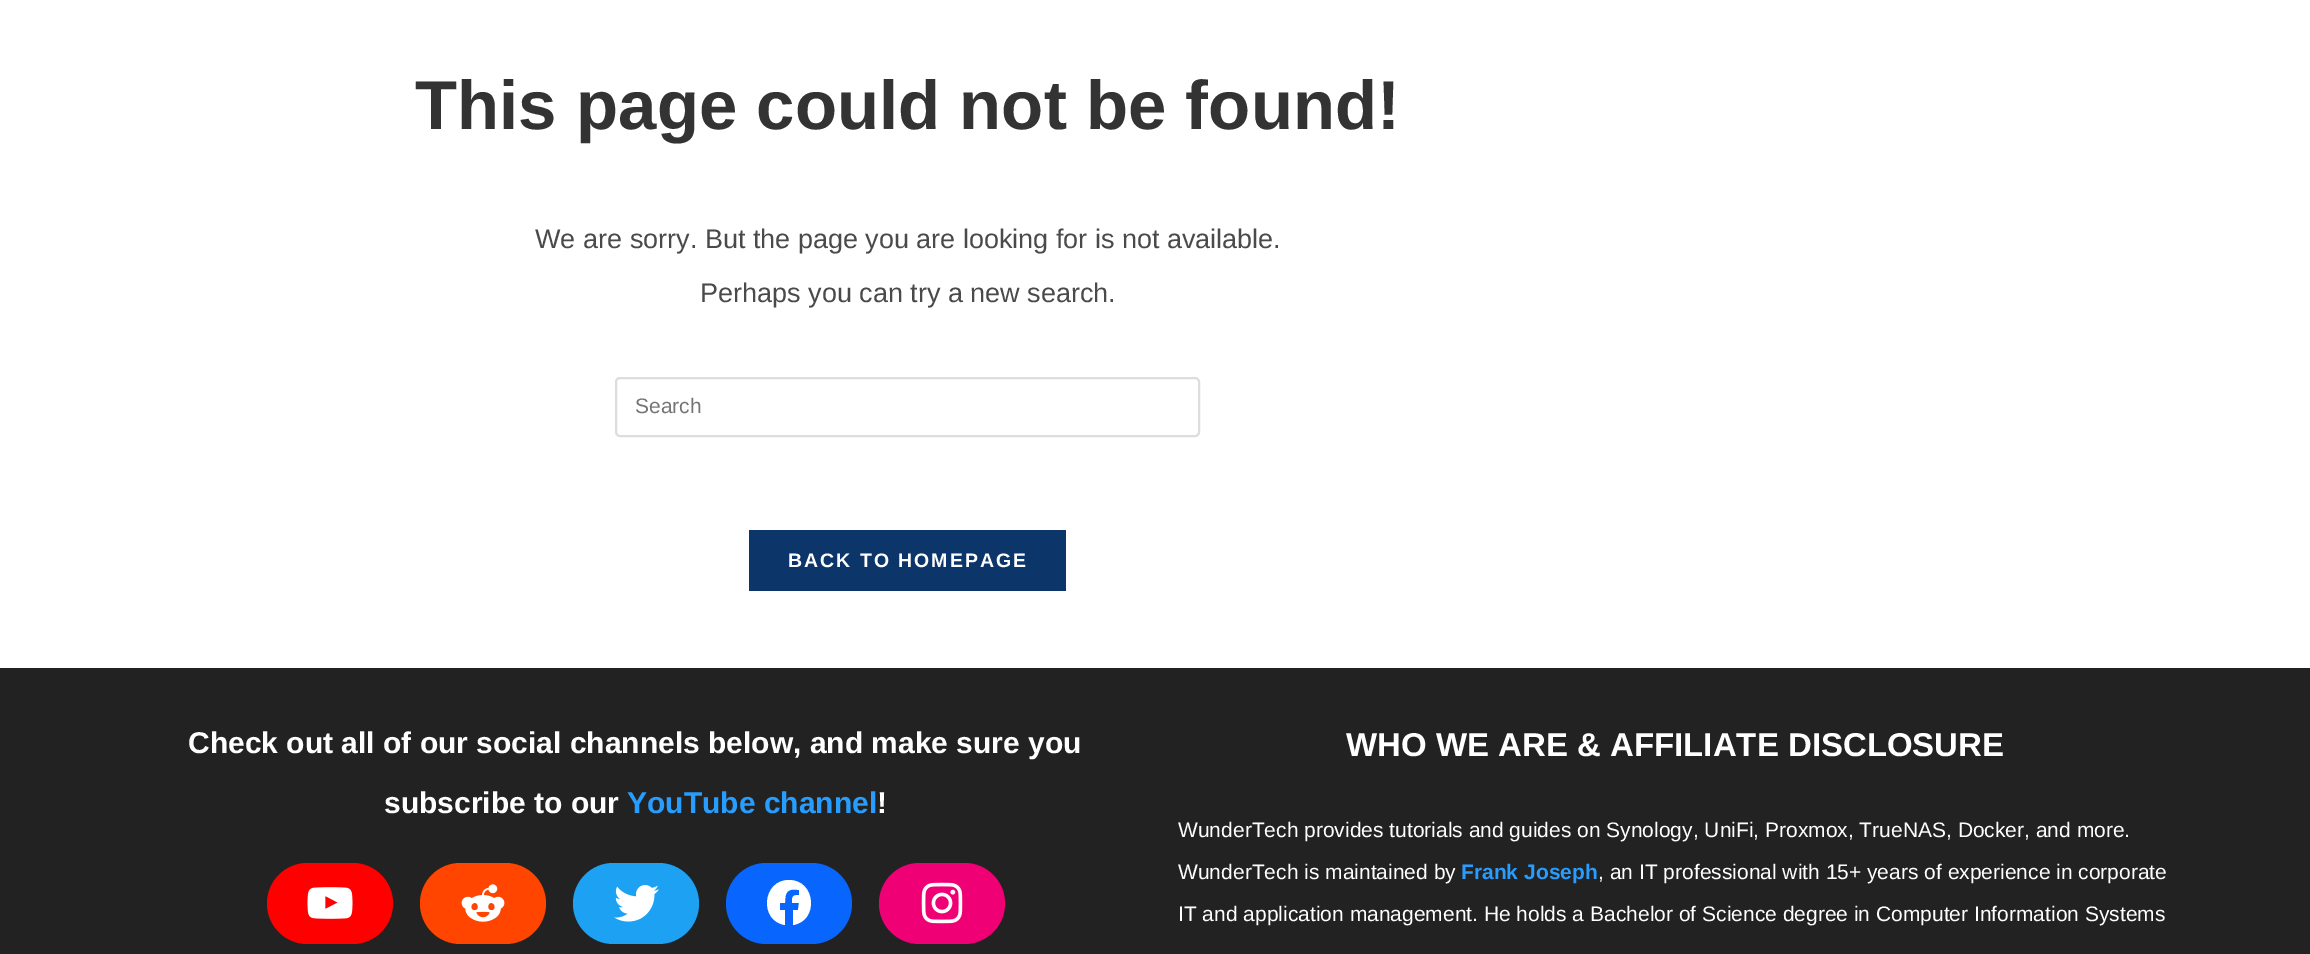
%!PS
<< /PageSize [2310 954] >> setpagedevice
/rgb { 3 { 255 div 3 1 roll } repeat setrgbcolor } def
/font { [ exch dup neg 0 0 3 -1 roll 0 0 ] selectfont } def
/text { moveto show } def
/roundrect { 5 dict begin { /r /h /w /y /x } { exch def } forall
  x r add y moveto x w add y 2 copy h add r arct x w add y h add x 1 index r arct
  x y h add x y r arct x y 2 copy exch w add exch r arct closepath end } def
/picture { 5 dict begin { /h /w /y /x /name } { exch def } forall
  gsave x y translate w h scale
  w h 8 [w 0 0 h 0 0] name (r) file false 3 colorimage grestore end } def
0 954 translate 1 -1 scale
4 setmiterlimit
255 255 255 rgb
0 0 2310 954 rectfill
221 221 221 rgb
2 setlinewidth
616 378 583 58 4 roundrect stroke
12 53 106 rgb
749 530 317 61 rectfill
34 34 34 rgb
0 668 2310 286 rectfill
255 0 0 rgb
267 863 126 81 40.5 roundrect fill
(img_01.rgb) 307 887 46 32 picture
255 69 0 rgb
420 863 126 81 40.5 roundrect fill
(img_02.rgb) 461 884 44 38 picture
29 161 242 rgb
573 863 126 81 40.5 roundrect fill
(img_03.rgb) 614 885 45 37 picture
8 102 255 rgb
726 863 126 81 40.5 roundrect fill
255 255 255 rgb
789 880 moveto -27 0 -30 41 -4 45 rcurveto 0 -15 rlineto -5 0 rlineto 0 -7 rlineto 5 0 rlineto 0 -11 2 -15 14 -13 rcurveto 0 5 rlineto -7 0 -7 2 -7 8 rcurveto 7 0 rlineto -1 7 rlineto -5 0 rlineto 0 15 rlineto 26 -4 23 -45 -4 -45 rcurveto closepath fill
240 0 117 rgb
879 863 126 81 40.5 roundrect fill
(img_04.rgb) 921 882 42 42 picture
/LiberationSans-Bold 69 font
51 51 51 rgb
(This page could not be found!) 415 129 text
/LiberationSans-Regular 27 font
74 74 74 rgb
(We are sorry. But the page you are looking for is not available.) 535 248 text
(Perhaps you can try a new search.) 700 302 text
/LiberationSans-Regular 21 font
117 117 117 rgb
(Search) 635 413 text
/LiberationSans-Bold 19.5 font
255 255 255 rgb
788 567 moveto 2 0 (BACK TO HOMEPAGE) ashow
/LiberationSans-Bold 30 font
(Check out all of our social channels below, and make sure you) 188 753 text
(subscribe to our) 384 813 text
39 158 255 rgb
(YouTube channel) 627 813 text
255 255 255 rgb
(!) 877 813 text
/LiberationSans-Bold 33 font
(WHO WE ARE & AFFILIATE DISCLOSURE) 1346 756 text
/LiberationSans-Regular 21 font
(WunderTech provides tutorials and guides on Synology, UniFi, Proxmox, TrueNAS, Docker, and more.) 1178 837 text
(WunderTech is maintained by) 1178 879 text
/LiberationSans-Bold 21 font
39 158 255 rgb
(Frank Joseph) 1461 879 text
/LiberationSans-Regular 21 font
255 255 255 rgb
(, an IT professional with 15+ years of experience in corporate) 1598 879 text
(IT and application management. He holds a Bachelor of Science degree in Computer Information Systems) 1178 921 text
showpage
